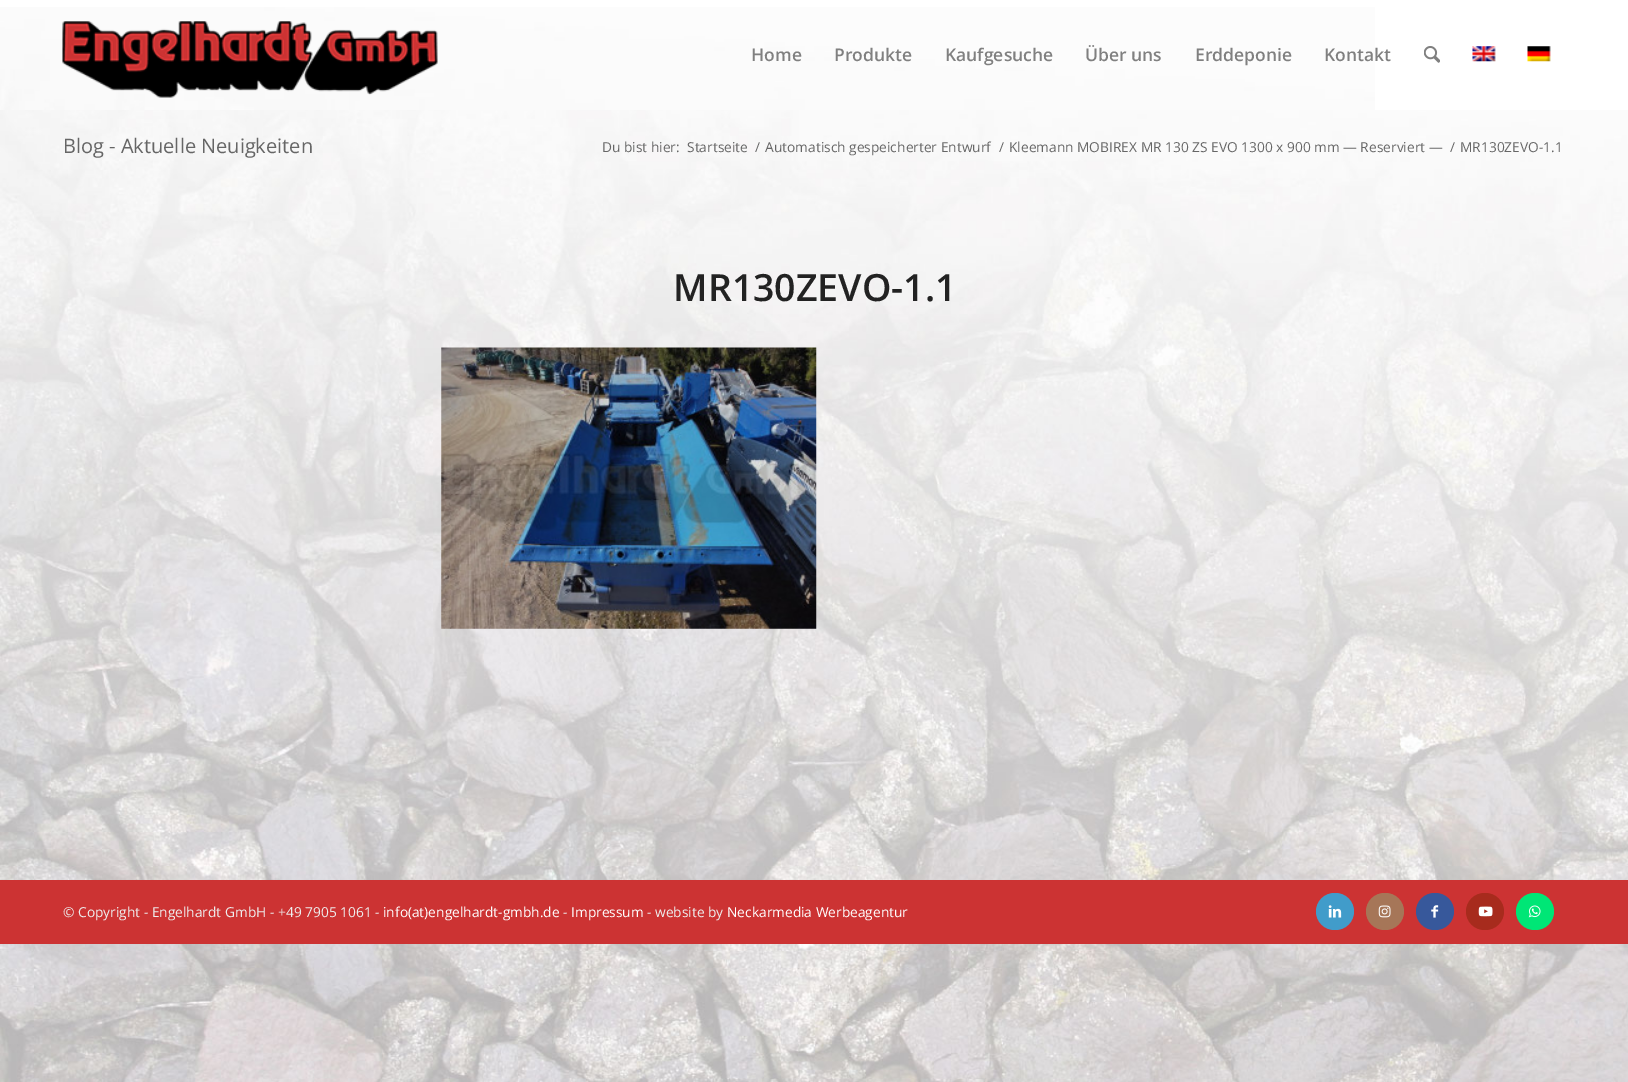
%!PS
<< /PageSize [1628 1082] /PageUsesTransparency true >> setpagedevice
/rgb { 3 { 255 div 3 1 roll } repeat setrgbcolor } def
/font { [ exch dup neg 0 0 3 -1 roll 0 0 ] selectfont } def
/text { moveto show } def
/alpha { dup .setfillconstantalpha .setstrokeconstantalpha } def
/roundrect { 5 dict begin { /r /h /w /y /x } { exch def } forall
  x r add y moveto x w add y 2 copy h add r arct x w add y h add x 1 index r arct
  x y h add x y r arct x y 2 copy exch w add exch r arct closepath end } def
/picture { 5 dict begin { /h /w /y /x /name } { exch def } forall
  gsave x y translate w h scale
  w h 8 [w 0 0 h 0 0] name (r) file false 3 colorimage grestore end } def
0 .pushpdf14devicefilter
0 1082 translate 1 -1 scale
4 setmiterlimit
255 255 255 rgb
0 0 1628 1082 rectfill
(img_01.rgb) 0 0 1628 1082 picture
0.95 alpha
0 0 1628 110 rectfill
1 alpha
(img_02.rgb) 0 7 1375 103 picture
(img_03.rgb) 62 21 376 77 picture
(img_04.rgb) 1424 46 16 17 picture
(img_05.rgb) 1472 46 24 16 picture
(img_06.rgb) 1527 46 24 16 picture
(img_07.rgb) 441 347 376 282 picture
204 51 51 rgb
0 880 1628 64 rectfill
65 156 202 rgb
1316 893 38 37 18.5 roundrect fill
(img_08.rgb) 1328 905 14 13 picture
166 118 88 rgb
1366 893 38 37 18.5 roundrect fill
(img_09.rgb) 1378 905 13 13 picture
55 88 155 rgb
1416 893 38 37 18.5 roundrect fill
(img_10.rgb) 1431 905 8 13 picture
167 43 29 rgb
1466 893 38 37 18.5 roundrect fill
(img_11.rgb) 1478 906 15 11 picture
0 230 118 rgb
1516 893 38 37 18.5 roundrect fill
(img_12.rgb) 1528 905 13 13 picture
/OpenSans-SemiBold 17.5 font
128 128 128 rgb
(Home) 751 61 text
(Produkte) 834 61 text
(Kaufgesuche) 945 61 text
(Über uns) 1085 61 text
(Erddeponie) 1195 61 text
(Kontakt) 1324 61 text
/OpenSans-Regular 20 font
102 102 102 rgb
(Blog - Aktuelle Neuigkeiten) 63 153 text
/OpenSans-Regular 13.75 font
(Du bist hier:) 602 152 text
(Startseite) 687 152 text
(/) 755 152 text
(Automatisch gespeicherter Entwurf) 765 152 text
(/) 999 152 text
(Kleemann MOBIREX MR 130 ZS EVO 1300 x 900 mm — Reserviert —) 1009 152 text
(/) 1450 152 text
(MR130ZEVO-1.1) 1460 152 text
/OpenSans-SemiBold 37.5 font
34 34 34 rgb
(MR130ZEVO-1.1) 673 301 text
/OpenSans-Regular 13.75 font
238 238 238 rgb
(© Copyright - Engelhardt GmbH - +49 7905 1061 -) 63 917 text
255 255 255 rgb
(info\(at\)engelhardt-gmbh.de) 383 917 text
238 238 238 rgb
(-) 563 917 text
255 255 255 rgb
(Impressum) 571 917 text
238 238 238 rgb
(- website by) 647 917 text
255 255 255 rgb
(Neckarmedia Werbeagentur) 727 917 text
.poppdf14devicefilter showpage
